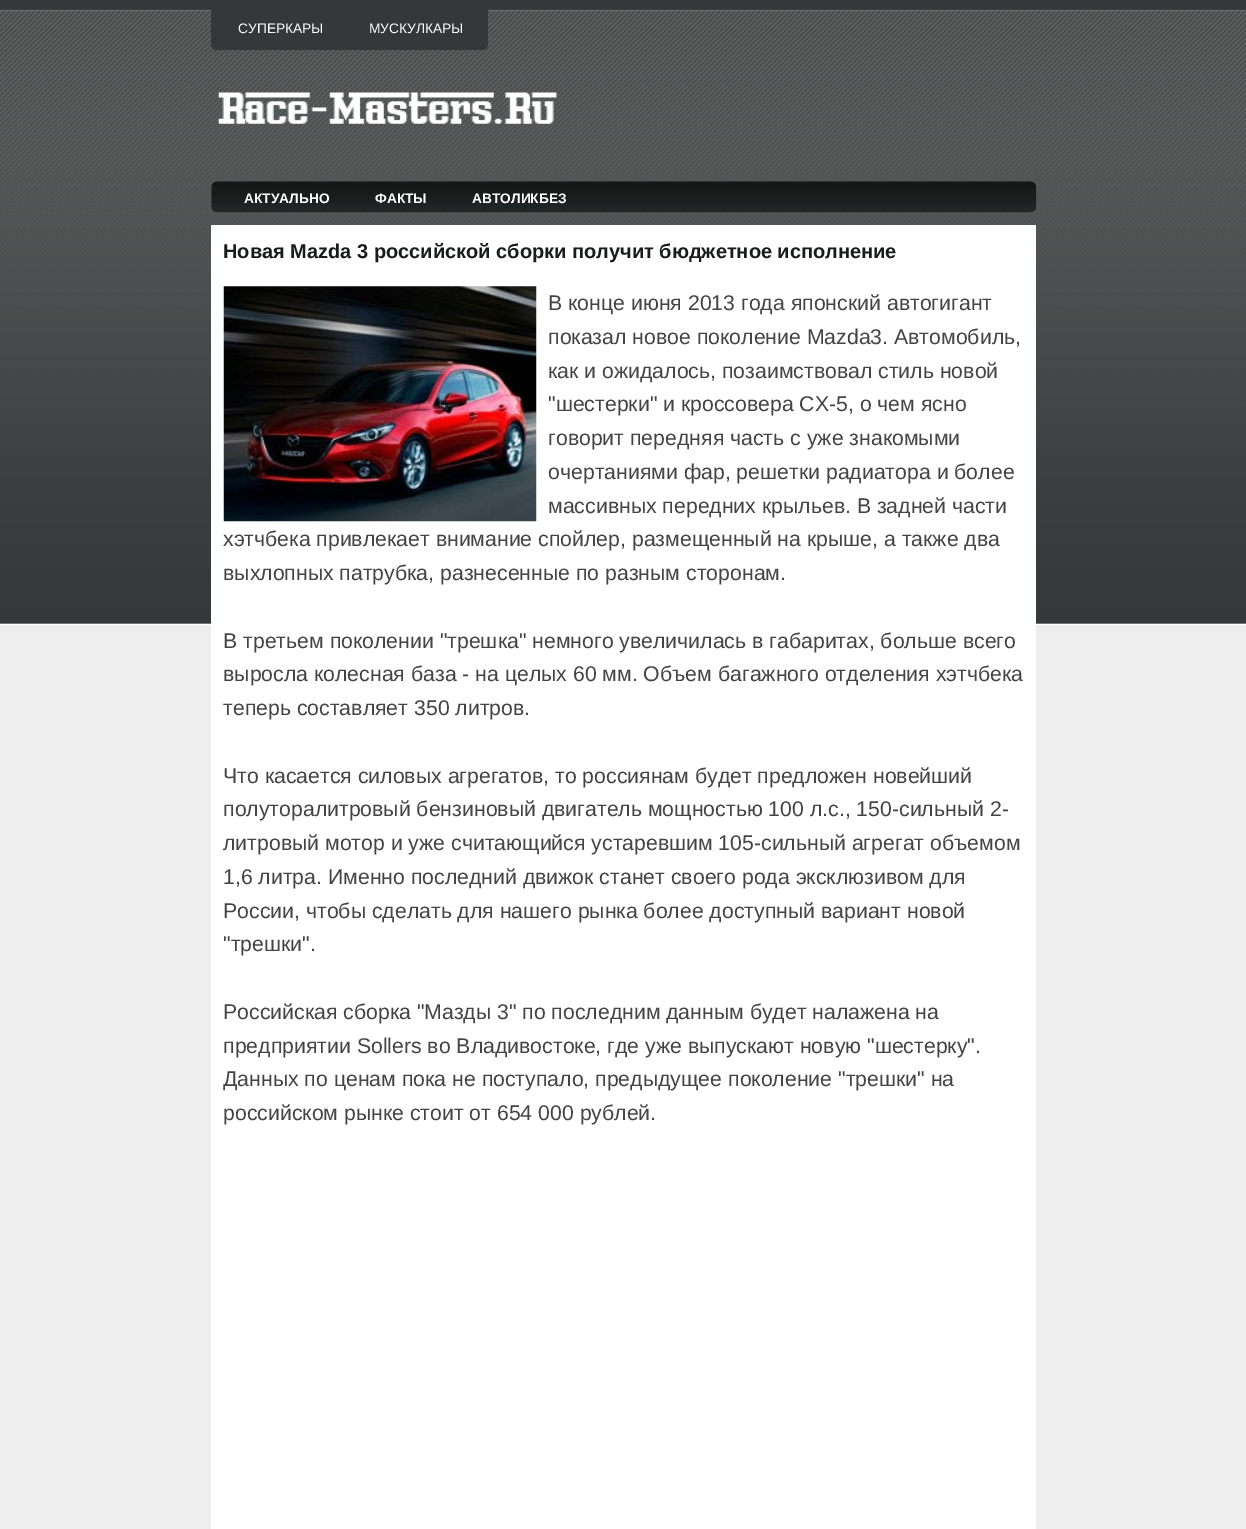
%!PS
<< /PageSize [1246 1529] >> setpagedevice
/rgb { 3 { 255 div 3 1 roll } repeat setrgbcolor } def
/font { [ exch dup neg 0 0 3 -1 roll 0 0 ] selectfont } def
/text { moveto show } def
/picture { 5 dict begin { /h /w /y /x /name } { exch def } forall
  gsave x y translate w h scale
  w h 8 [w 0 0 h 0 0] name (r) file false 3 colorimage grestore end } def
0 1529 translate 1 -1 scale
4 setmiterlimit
238 238 238 rgb
0 0 1246 1529 rectfill
(img_01.rgb) 0 0 1246 625 picture
52 56 56 rgb
211 0 moveto 277 0 rlineto 0 44 rlineto 0 3.5 -2.5 6 -6 6 rcurveto -265 0 rlineto -3.5 0 -6 -2.5 -6 -6 rcurveto closepath fill
(img_02.rgb) 218 92 340 32 picture
(img_03.rgb) 211 181 826 32 picture
255 255 255 rgb
211 225 825 1304 rectfill
(img_04.rgb) 223 286 314 236 picture
/LiberationSans-Regular 13.75 font
(СУПЕРКАРЫ) 238 33 text
(МУСКУЛКАРЫ) 369 33 text
/LiberationSans-Bold 13.75 font
(АКТУАЛЬНО) 244 203 text
(ФАКТЫ) 375 203 text
(АВТОЛИКБЕЗ) 472 203 text
/LiberationSans-Bold 20 font
26 27 27 rgb
(Новая Mazda 3 российской сборки получит бюджетное исполнение) 223 258 text
/LiberationSans-Regular 21.25 font
68 68 68 rgb
(В конце июня 2013 года японский автогигант) 548 310 text
(показал новое поколение Mazda3. Автомобиль,) 548 344 text
(как и ожидалось, позаимствовал стиль новой) 548 378 text
("шестерки" и кроссовера CX-5, о чем ясно) 548 411 text
(говорит передняя часть с уже знакомыми) 548 445 text
(очертаниями фар, решетки радиатора и более) 548 479 text
(массивных передних крыльев. В задней части) 548 513 text
(хэтчбека привлекает внимание спойлер, размещенный на крыше, а также два) 223 546 text
(выхлопных патрубка, разнесенные по разным сторонам.) 223 580 text
(В третьем поколении "трешка" немного увеличилась в габаритах, больше всего) 223 648 text
(выросла колесная база - на целых 60 мм. Объем багажного отделения хэтчбека) 223 681 text
(теперь составляет 350 литров.) 223 715 text
(Что касается силовых агрегатов, то россиянам будет предложен новейший) 223 783 text
(полуторалитровый бензиновый двигатель мощностью 100 л.с., 150-сильный 2-) 223 816 text
(литровый мотор и уже считающийся устаревшим 105-сильный агрегат объемом) 223 850 text
(1,6 литра. Именно последний движок станет своего рода эксклюзивом для) 223 884 text
(России, чтобы сделать для нашего рынка более доступный вариант новой) 223 918 text
("трешки".) 223 951 text
(Российская сборка "Мазды 3" по последним данным будет налажена на) 223 1019 text
(предприятии Sollers во Владивостоке, где уже выпускают новую "шестерку".) 223 1053 text
(Данных по ценам пока не поступало, предыдущее поколение "трешки" на) 223 1086 text
(российском рынке стоит от 654 000 рублей.) 223 1120 text
showpage
